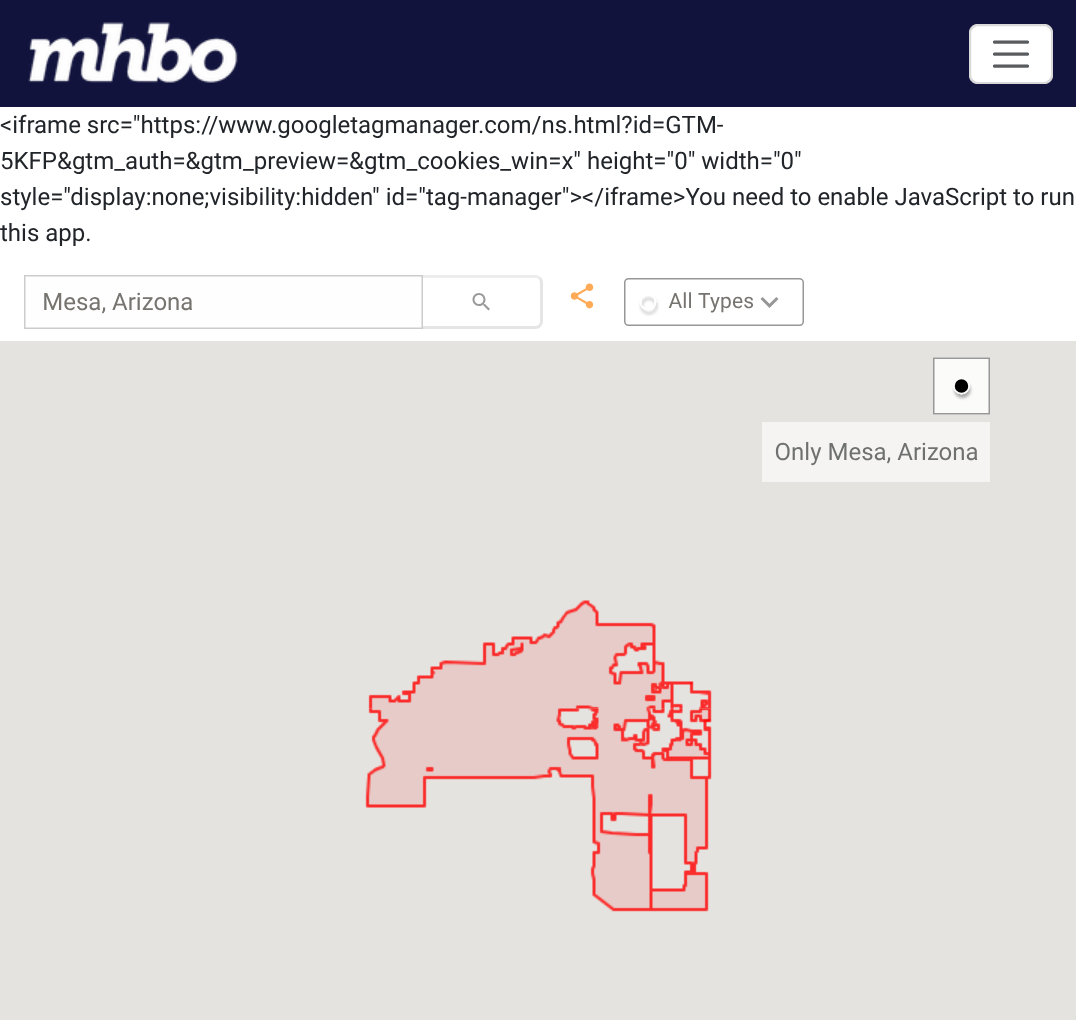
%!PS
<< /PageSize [1076 1020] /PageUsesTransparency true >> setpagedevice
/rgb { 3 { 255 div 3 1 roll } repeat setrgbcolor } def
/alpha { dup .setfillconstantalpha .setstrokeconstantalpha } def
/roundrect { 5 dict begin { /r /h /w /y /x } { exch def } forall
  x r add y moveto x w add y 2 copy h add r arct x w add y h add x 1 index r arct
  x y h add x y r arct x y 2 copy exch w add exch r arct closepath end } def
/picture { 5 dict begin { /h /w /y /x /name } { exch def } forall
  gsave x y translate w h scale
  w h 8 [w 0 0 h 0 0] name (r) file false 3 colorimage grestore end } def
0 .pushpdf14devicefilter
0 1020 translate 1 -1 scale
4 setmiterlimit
255 255 255 rgb
0 0 1076 1020 rectfill
18 19 61 rgb
0 0 1076 107 rectfill
(img_01.rgb) 28 22 210 61 picture
255 255 255 rgb
969 24 84 60 9 roundrect fill
0.15 alpha
0 0 0 rgb
2 setlinewidth
970 25 82 58 8 roundrect stroke
1 alpha
89 92 95 rgb
3 setlinewidth
1 setlinecap
994.5 42 moveto 33 0 rlineto 994.5 54 moveto 33 0 rlineto 994.5 66 moveto 33 0 rlineto stroke
(img_02.rgb) 0 114 1076 906 picture
.poppdf14devicefilter showpage
